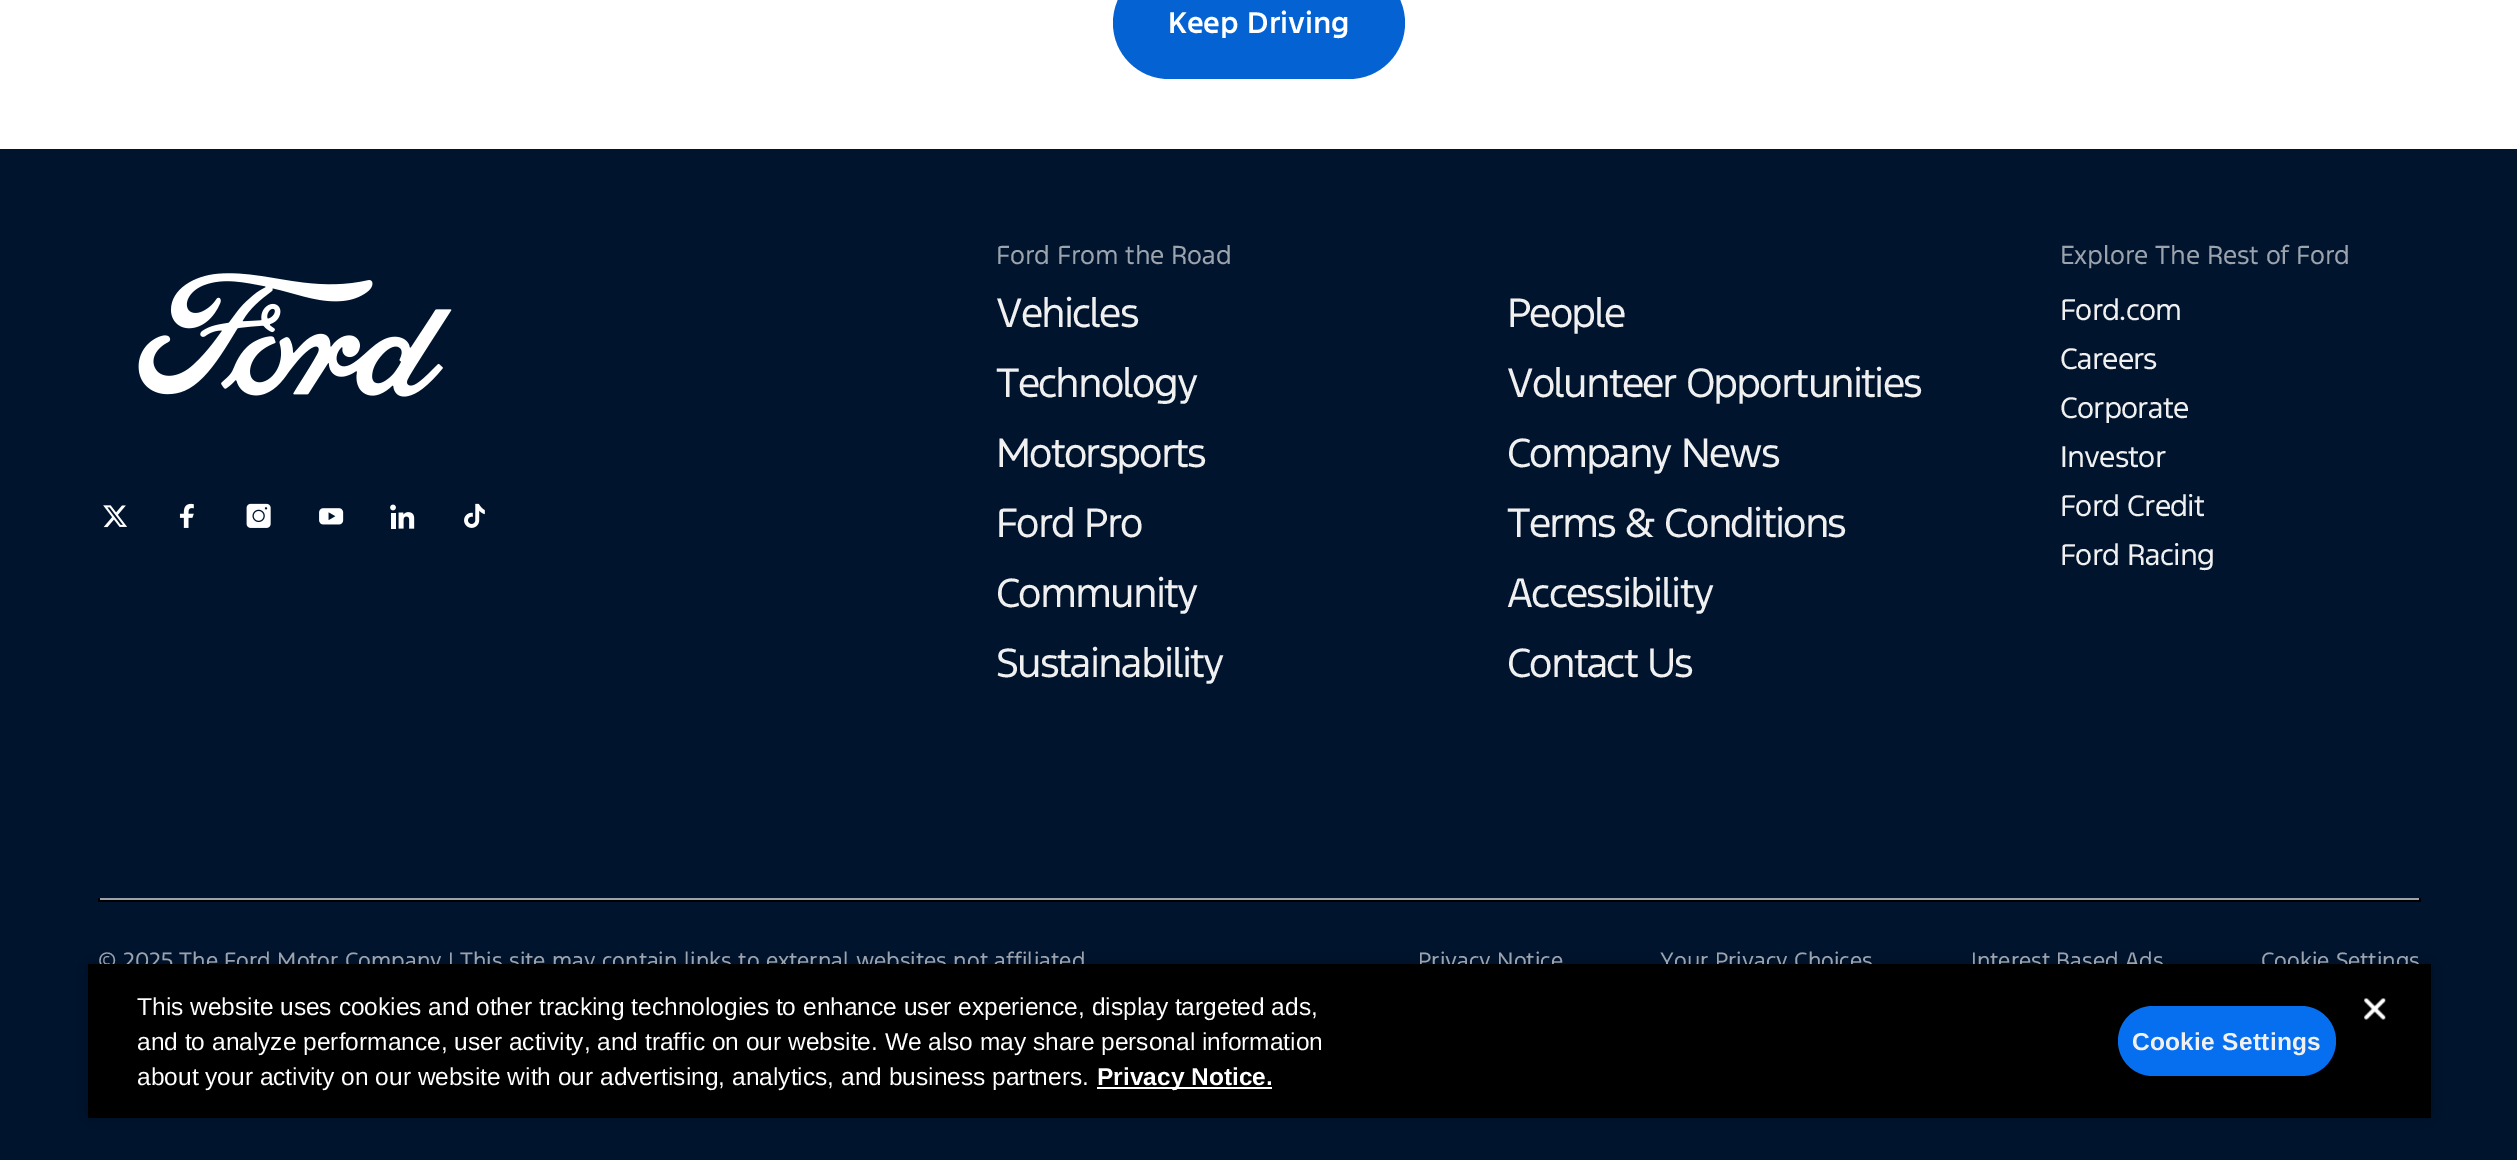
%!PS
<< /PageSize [2517 1160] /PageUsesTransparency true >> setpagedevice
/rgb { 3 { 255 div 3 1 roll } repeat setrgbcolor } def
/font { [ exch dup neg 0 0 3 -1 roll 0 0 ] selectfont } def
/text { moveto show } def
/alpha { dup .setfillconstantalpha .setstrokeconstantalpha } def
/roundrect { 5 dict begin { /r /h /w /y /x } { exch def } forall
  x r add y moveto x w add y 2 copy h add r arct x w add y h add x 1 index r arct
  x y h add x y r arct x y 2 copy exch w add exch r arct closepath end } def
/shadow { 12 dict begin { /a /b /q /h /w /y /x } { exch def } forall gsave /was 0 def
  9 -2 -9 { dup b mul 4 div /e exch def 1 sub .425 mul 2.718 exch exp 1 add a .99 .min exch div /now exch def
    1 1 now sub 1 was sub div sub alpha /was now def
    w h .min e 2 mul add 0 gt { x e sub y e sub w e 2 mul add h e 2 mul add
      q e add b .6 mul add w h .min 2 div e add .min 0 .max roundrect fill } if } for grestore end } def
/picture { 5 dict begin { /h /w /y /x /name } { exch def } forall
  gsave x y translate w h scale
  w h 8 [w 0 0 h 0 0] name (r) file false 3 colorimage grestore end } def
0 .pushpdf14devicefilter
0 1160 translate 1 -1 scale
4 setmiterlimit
255 255 255 rgb
0 0 2517 1160 rectfill
5 98 210 rgb
1113 -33 292 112 56 roundrect fill
0 20 46 rgb
0 149 2517 1011 rectfill
(img_01.rgb) 138 273 314 124 picture
(img_02.rgb) 103 505 24 23 picture
(img_03.rgb) 179 503 15 25 picture
(img_04.rgb) 246 503 25 25 picture
(img_05.rgb) 319 508 25 17 picture
(img_06.rgb) 390 504 25 25 picture
(img_07.rgb) 464 503 21 25 picture
156 163 173 rgb
98 898 2322 2 rectfill
0 0 0 rgb
2419 898 2 4 rectfill
98 900 2322 2 rectfill
98 898 2 4 rectfill
88 964 2343 154 0 16 0.2 shadow
/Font-SemiBold 28 font
255 255 255 rgb
(Keep Driving) 1168 33 text
/Font-Regular 24.5 font
156 163 173 rgb
996 264 moveto -0.25 0 (Ford From the Road) ashow
/Font-Regular 38.5 font
240 240 240 rgb
996 327 moveto -1.9 0 (Vehicles) ashow
996 397 moveto -1.9 0 (Technology) ashow
996 467 moveto -1.9 0 (Motorsports) ashow
996 537 moveto -1.9 0 (Ford Pro) ashow
996 607 moveto -1.9 0 (Community) ashow
996 677 moveto -1.9 0 (Sustainability) ashow
1507 327 moveto -1.9 0 (People) ashow
1507 397 moveto -1.9 0 (Volunteer Opportunities) ashow
1507 467 moveto -1.9 0 (Company News) ashow
1507 537 moveto -1.9 0 (Terms & Conditions) ashow
1507 607 moveto -1.9 0 (Accessibility) ashow
1507 677 moveto -1.9 0 (Contact Us) ashow
/Font-Regular 24.5 font
156 163 173 rgb
2060 264 moveto -0.25 0 (Explore The Rest of Ford) ashow
/Font-Regular 28 font
240 240 240 rgb
2060 320 moveto -0.75 0 (Ford.com) ashow
2060 369 moveto -0.75 0 (Careers) ashow
2060 418 moveto -0.75 0 (Corporate) ashow
2060 467 moveto -0.75 0 (Investor) ashow
2060 516 moveto -0.75 0 (Ford Credit) ashow
2060 565 moveto -0.75 0 (Ford Racing) ashow
/Font-Regular 21 font
156 163 173 rgb
(© 2025 The Ford Motor Company | This site may contain links to external websites not affiliated) 98 968 text
(Privacy Notice) 1418 968 text
(Your Privacy Choices) 1660 968 text
(Interest Based Ads) 1971 968 text
(Cookie Settings) 2261 968 text
0 0 0 rgb
88 964 2343 154 rectfill
/LiberationSans-Regular 24.5 font
255 255 255 rgb
(This website uses cookies and other tracking technologies to enhance user experience, display targeted ads,) 137 1015 text
(and to analyze performance, user activity, and traffic on our website. We also may share personal information) 137 1050 text
(about your activity on our website with our advertising, analytics, and business partners.) 137 1085 text
1097 1087 175 2 rectfill
/LiberationSans-Bold 24.5 font
(Privacy Notice.) 1097 1085 text
6 111 239 rgb
2118 1006 218 70 35 roundrect fill
240 240 240 rgb
2132 1050 moveto 0.25 0 (Cookie Settings) ashow
(img_08.rgb) 2364 998 22 22 picture
.poppdf14devicefilter showpage
